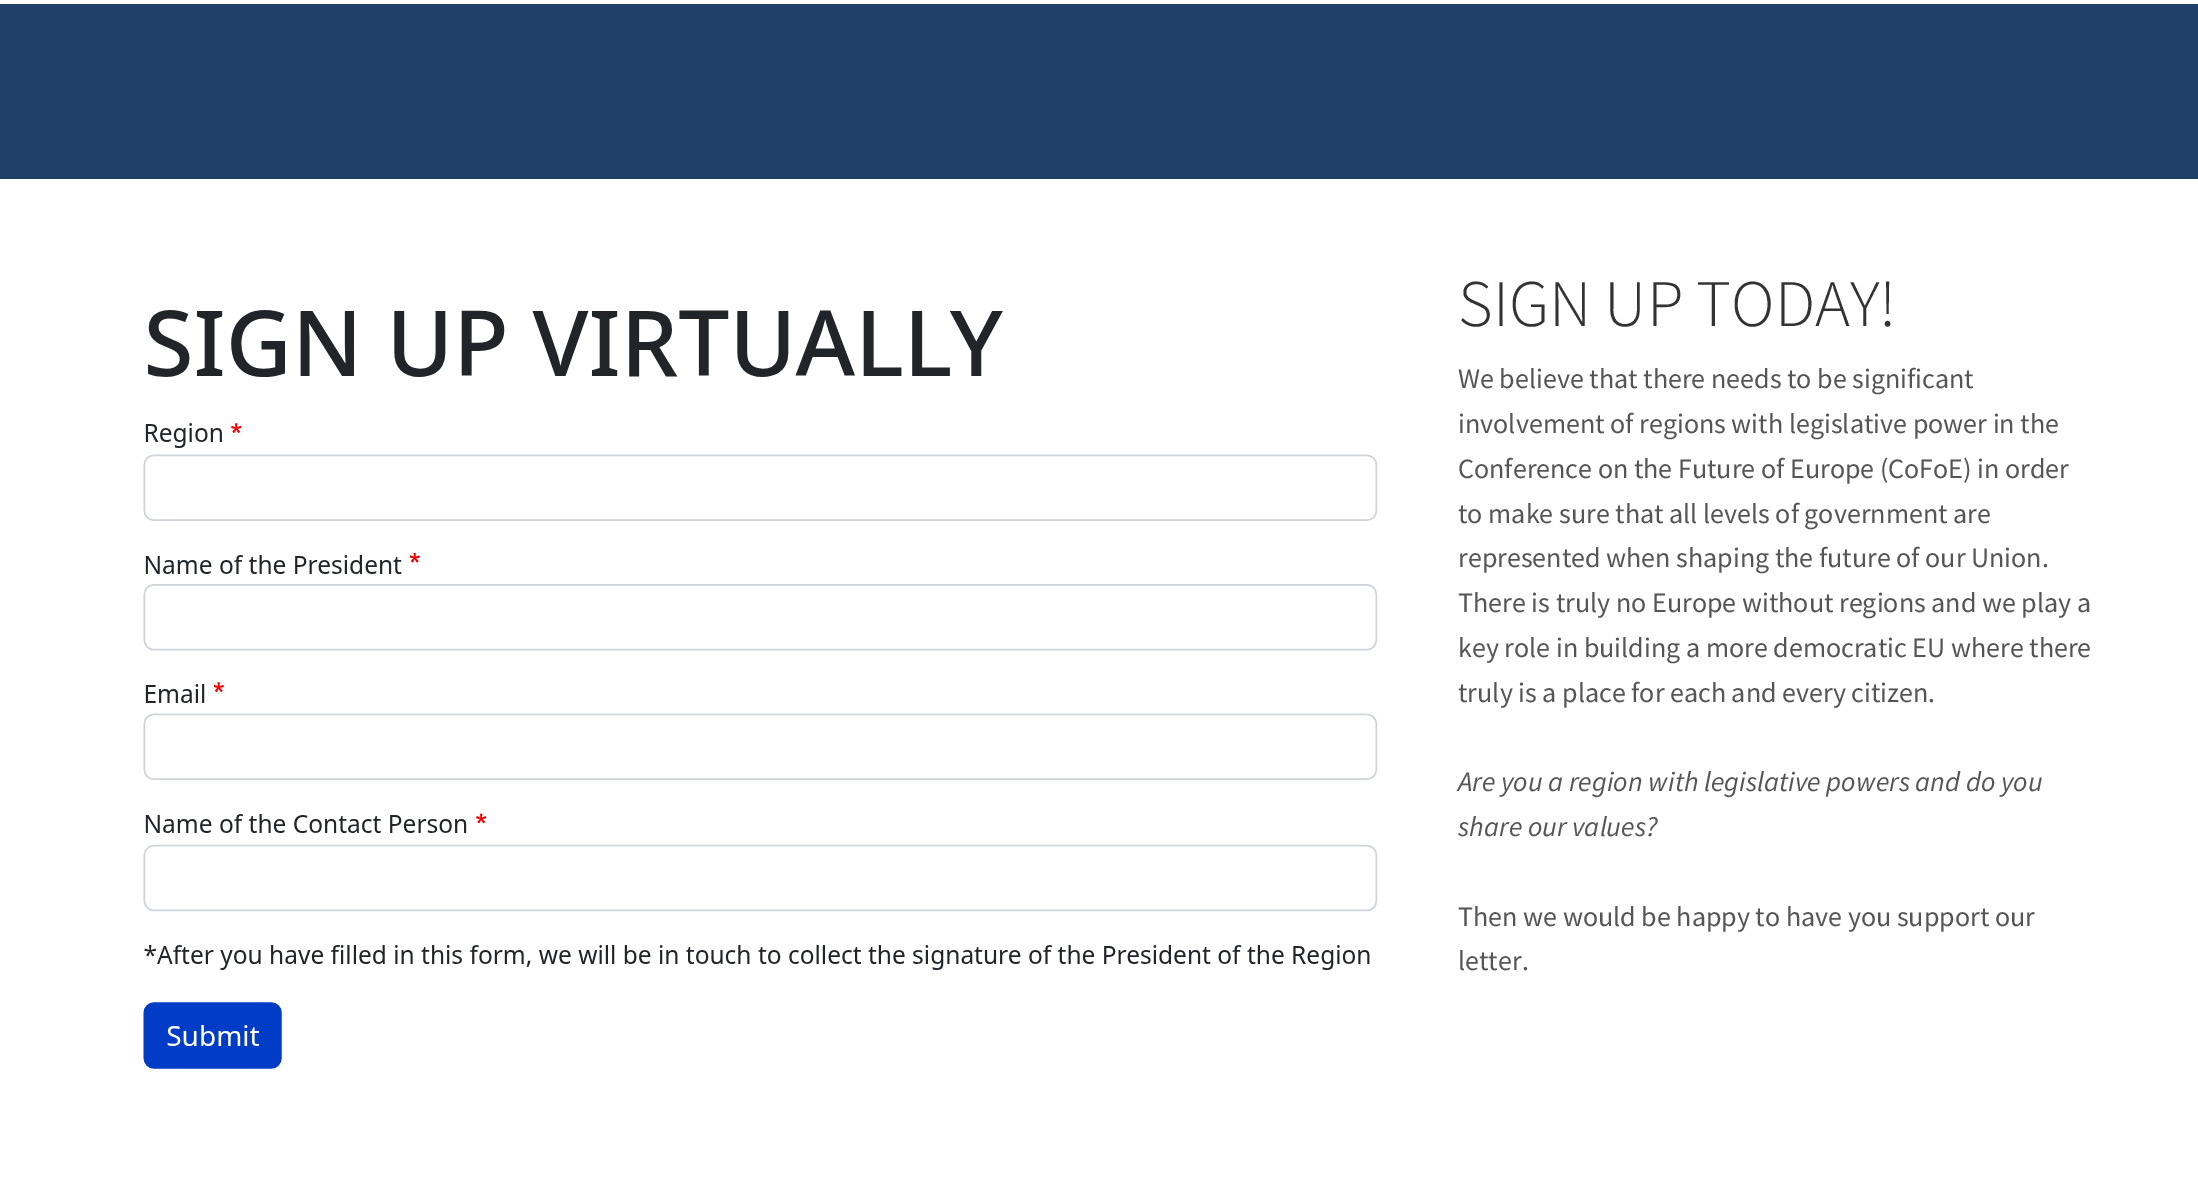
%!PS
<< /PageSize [2198 1197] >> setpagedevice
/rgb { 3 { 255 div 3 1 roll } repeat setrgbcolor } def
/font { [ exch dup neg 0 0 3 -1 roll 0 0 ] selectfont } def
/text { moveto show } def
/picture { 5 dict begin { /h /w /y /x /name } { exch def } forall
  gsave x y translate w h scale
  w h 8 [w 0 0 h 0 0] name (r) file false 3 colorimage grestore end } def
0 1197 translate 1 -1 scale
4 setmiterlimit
255 255 255 rgb
0 0 2198 1197 rectfill
31 64 104 rgb
0 4 2198 175 rectfill
(img_01.rgb) 143 310 1235 759 picture
/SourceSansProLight-Light 66.5 font
51 51 51 rgb
(SIGN UP TODAY!) 1458 326 text
/SourceSansPro-Regular 28 font
85 85 85 rgb
(We believe that there needs to be significant) 1458 388 text
(involvement of regions with legislative power in the) 1458 433 text
(Conference on the Future of Europe \(CoFoE\) in order) 1458 478 text
(to make sure that all levels of government are) 1458 523 text
(represented when shaping the future of our Union.) 1458 567 text
(There is truly no Europe without regions and we play a) 1458 612 text
(key role in building a more democratic EU where there) 1458 657 text
(truly is a place for each and every citizen.) 1458 702 text
/SourceSansPro-Italic 28 font
(Are you a region with legislative powers and do you) 1458 791 text
(share our values?) 1458 836 text
/SourceSansPro-Regular 28 font
(Then we would be happy to have you support our) 1458 926 text
(letter.) 1458 970 text
showpage
